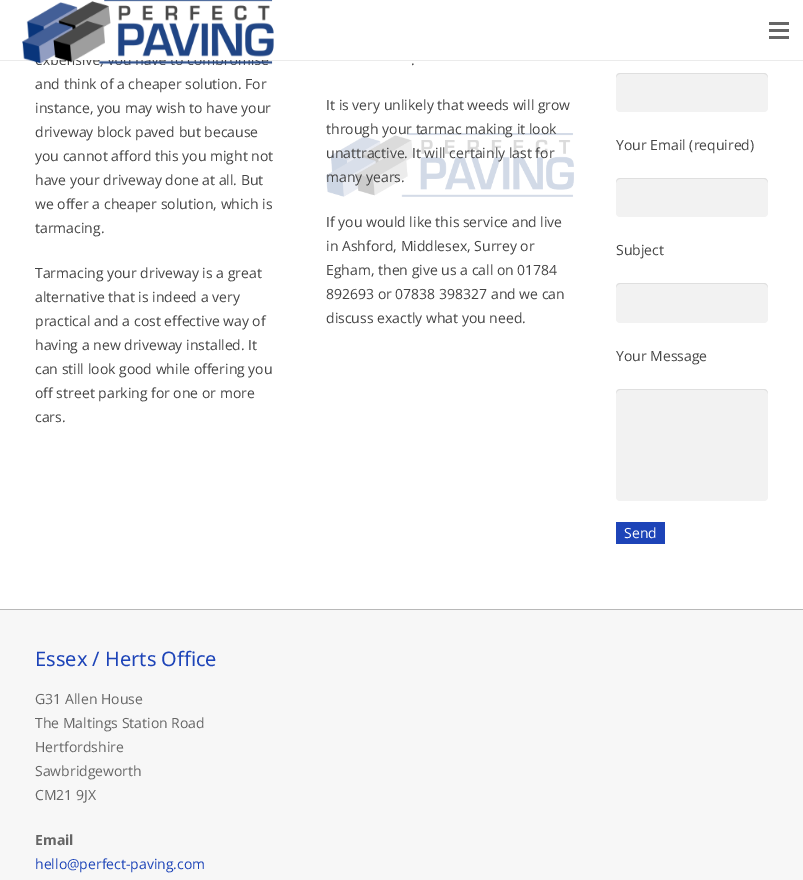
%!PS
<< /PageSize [803 880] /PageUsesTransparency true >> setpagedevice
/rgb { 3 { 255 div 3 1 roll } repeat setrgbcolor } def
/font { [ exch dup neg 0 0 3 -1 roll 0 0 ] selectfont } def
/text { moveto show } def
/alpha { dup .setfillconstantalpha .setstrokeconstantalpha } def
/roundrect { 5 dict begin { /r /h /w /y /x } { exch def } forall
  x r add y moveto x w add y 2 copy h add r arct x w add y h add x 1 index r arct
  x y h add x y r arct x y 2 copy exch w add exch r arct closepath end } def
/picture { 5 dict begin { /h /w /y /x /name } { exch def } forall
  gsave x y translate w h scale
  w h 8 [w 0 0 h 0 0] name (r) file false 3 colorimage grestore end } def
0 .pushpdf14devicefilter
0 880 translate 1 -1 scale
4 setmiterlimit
255 255 255 rgb
0 0 803 880 rectfill
0.08 alpha
0 0 0 rgb
0 60 803 1 rectfill
1 alpha
102 102 102 rgb
769 29 20 3 rectfill
769 22 20 3 rectfill
769 36 20 3 rectfill
(img_02.rgb) 326 133 248 64 picture
242 242 242 rgb
616 73 152 39 4 roundrect fill
0.08 alpha
0 0 0 rgb
620 74 moveto 144 0 rlineto 2 0 4 2 4 4 rcurveto 0 -2 -1 -4 -3 -5 rcurveto -145 0 rlineto -3 0 -4 2 -4 5 rcurveto 0 -2 2 -4 4 -4 rcurveto closepath fill
1 alpha
242 242 242 rgb
616 178 152 39 4 roundrect fill
0.08 alpha
0 0 0 rgb
620 179 moveto 144 0 rlineto 2 0 4 2 4 4 rcurveto 0 -2 -1 -4 -3 -5 rcurveto -145 0 rlineto -3 0 -4 2 -4 5 rcurveto 0 -2 2 -4 4 -4 rcurveto closepath fill
1 alpha
242 242 242 rgb
616 283 152 40 4 roundrect fill
0.08 alpha
0 0 0 rgb
620 284 moveto 144 0 rlineto 2 0 4 2 4 4 rcurveto 0 -2 -1 -4 -3 -5 rcurveto -145 0 rlineto -3 0 -4 2 -4 5 rcurveto 0 -2 2 -4 4 -4 rcurveto closepath fill
1 alpha
242 242 242 rgb
616 389 152 112 4 roundrect fill
0.08 alpha
0 0 0 rgb
620 390 moveto 144 0 rlineto 2 0 4 2 4 4 rcurveto 0 -2 -1 -4 -3 -5 rcurveto -145 0 rlineto -3 0 -4 2 -4 5 rcurveto 0 -2 2 -4 4 -4 rcurveto closepath fill
1 alpha
29 68 184 rgb
616 522 49 22 rectfill
184 184 184 rgb
0 609 803 1 rectfill
247 247 247 rgb
0 610 803 270 rectfill
/OpenSans-Regular 14 font
68 68 68 rgb
(,) 100 65 text
(img_01.rgb) 22 0 252 65 picture
(and think of a cheaper solution. For) 35 89 text
(instance, you may wish to have your) 35 113 text
(driveway block paved but because) 35 137 text
(you cannot afford this you might not) 35 161 text
(have your driveway done at all. But) 35 185 text
(we offer a cheaper solution, which is) 35 209 text
(tarmacing.) 35 233 text
(Tarmacing your driveway is a great) 35 278 text
(alternative that is indeed a very) 35 302 text
(practical and a cost effective way of) 35 326 text
(having a new driveway installed. It) 35 350 text
(can still look good while offering you) 35 374 text
(off street parking for one or more) 35 398 text
(cars.) 35 422 text
(.) 411 65 text
(It is very unlikely that weeds will grow) 326 110 text
(through your tarmac making it look) 326 134 text
(unattractive. It will certainly last for) 326 158 text
(many years.) 326 182 text
(If you would like this service and live) 326 227 text
(in Ashford, Middlesex, Surrey or) 326 251 text
(Egham, then give us a call on 01784) 326 275 text
(892693 or 07838 398327 and we can) 326 299 text
(discuss exactly what you need.) 326 323 text
(Your Email \(required\)) 616 150 text
(Subject) 616 255 text
(Your Message) 616 361 text
255 255 255 rgb
(Send) 624 538 text
/NotoSans-Regular 20 font
29 68 184 rgb
(Essex / Herts Office) 35 666 text
/OpenSans-Regular 14 font
102 102 102 rgb
(G31 Allen House) 35 704 text
(The Maltings Station Road) 35 728 text
(Hertfordshire) 35 752 text
(Sawbridgeworth) 35 776 text
(CM21 9JX) 35 800 text
/OpenSans-Bold 14 font
(Email) 35 845 text
/OpenSans-Regular 14 font
29 68 184 rgb
(hello@perfect-paving.com) 35 869 text
.poppdf14devicefilter showpage
